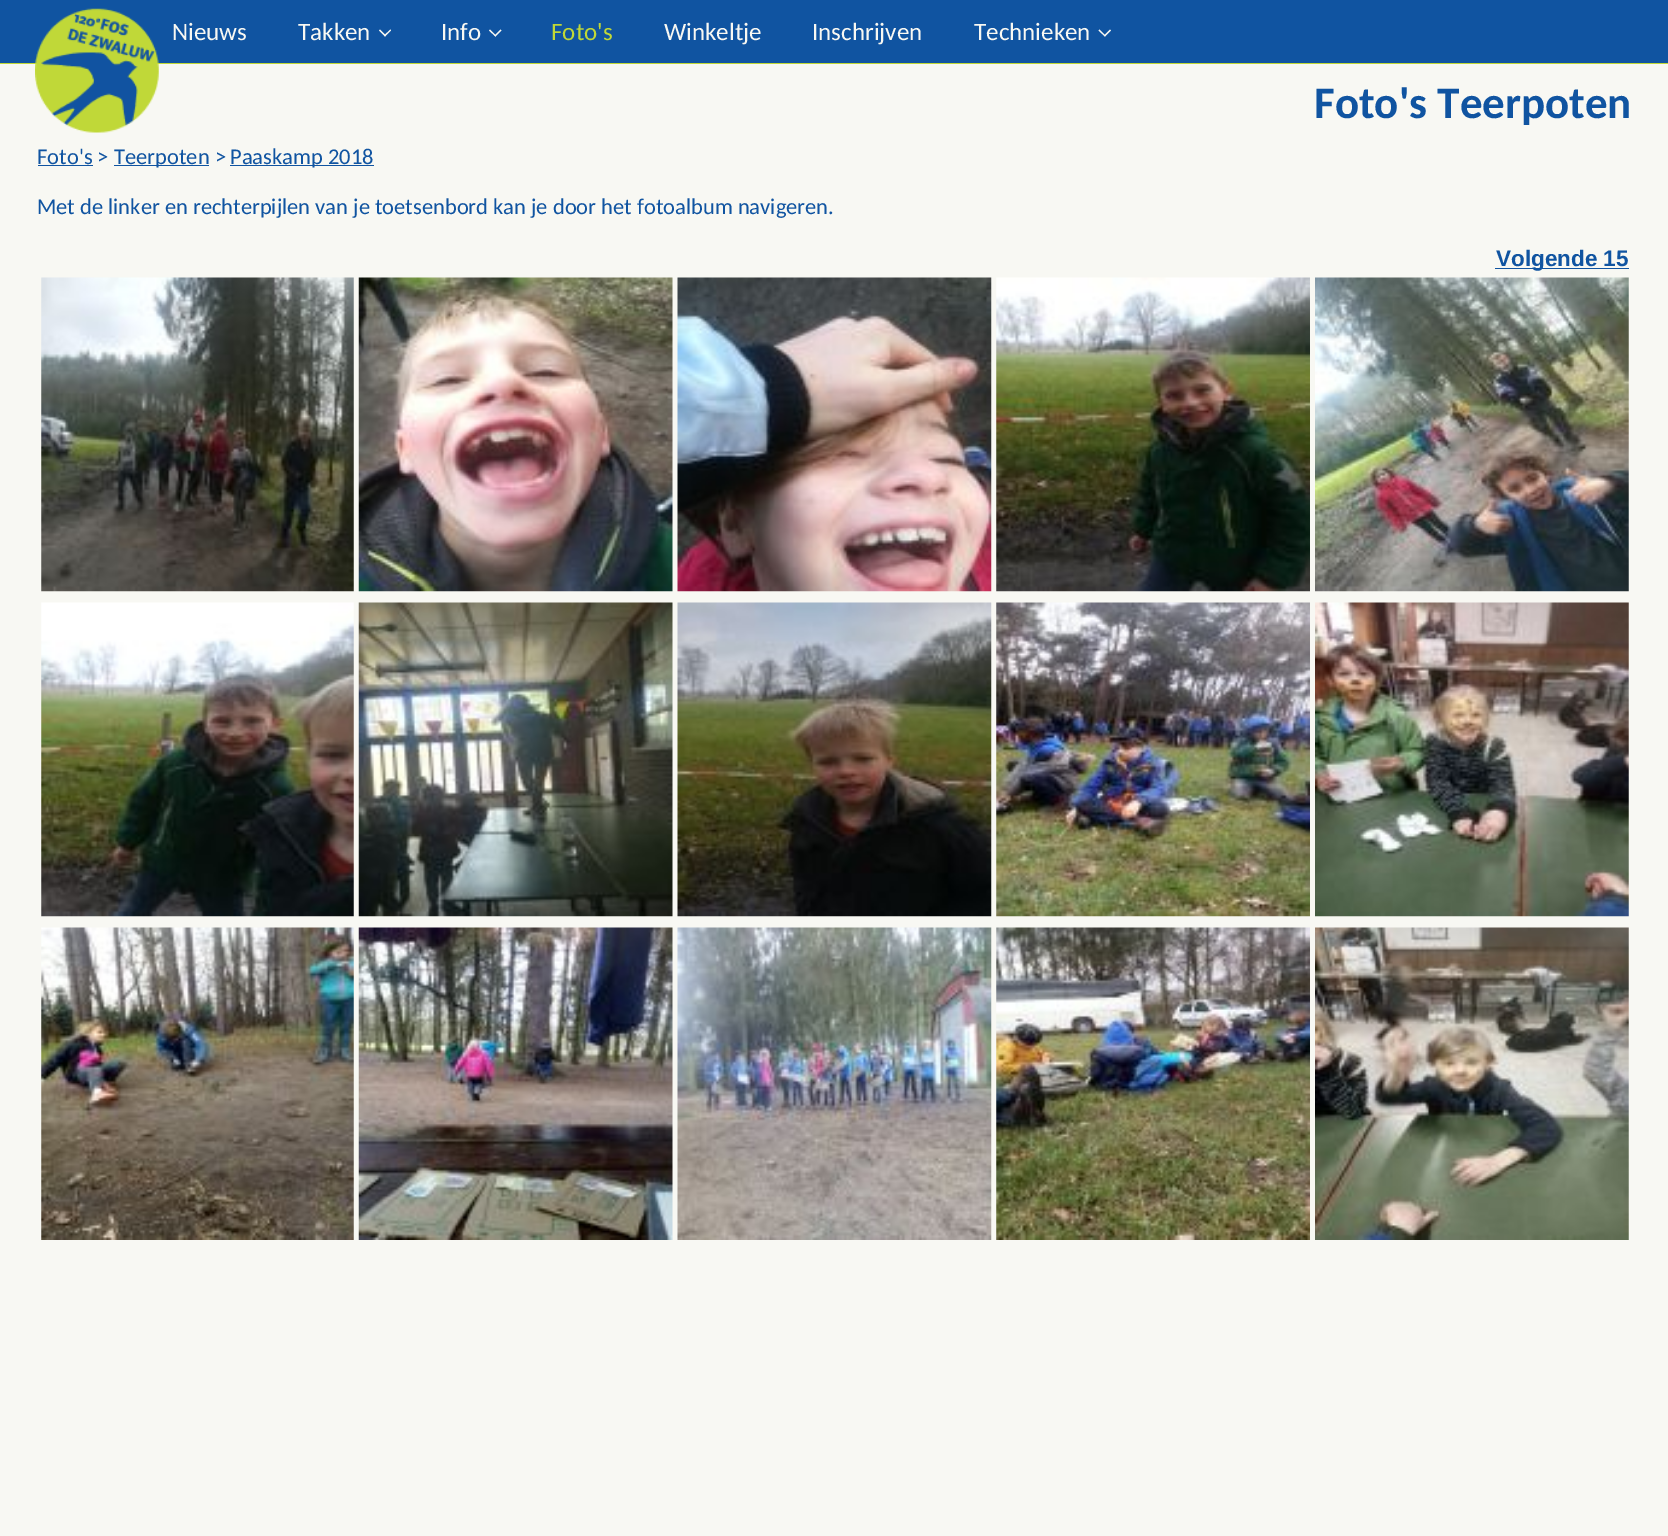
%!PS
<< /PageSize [1668 1536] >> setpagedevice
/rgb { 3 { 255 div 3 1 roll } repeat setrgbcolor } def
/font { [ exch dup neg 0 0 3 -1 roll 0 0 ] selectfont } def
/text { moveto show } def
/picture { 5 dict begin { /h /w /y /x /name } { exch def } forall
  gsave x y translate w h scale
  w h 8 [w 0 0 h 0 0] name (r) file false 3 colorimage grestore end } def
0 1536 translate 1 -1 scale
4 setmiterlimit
248 248 243 rgb
0 0 1668 1536 rectfill
16 84 161 rgb
0 0 1668 63 rectfill
192 216 55 rgb
0 63 1668 1 rectfill
(img_01.rgb) 35 8 124 125 picture
248 248 243 rgb
390.5 29.5 moveto 0.5 1 rlineto -6 6 rlineto -1 -1 rlineto closepath fill
380 29.5 moveto 6 6 rlineto -1 1 rlineto -6 -6 rlineto closepath fill
500.5 29.5 moveto 1 1 rlineto -6 6 rlineto -1 -1 rlineto closepath fill
490 29.5 moveto 6 6 rlineto -0.5 1 rlineto -6.5 -6 rlineto closepath fill
1110 29.5 moveto 1 1 rlineto -6 6 rlineto -1 -1 rlineto closepath fill
1099.5 29.5 moveto 6 6 rlineto -0.5 1 rlineto -6.5 -6 rlineto closepath fill
16 84 161 rgb
38 165 55 1 rectfill
114 165 95 1 rectfill
230 165 144 1 rectfill
1495 268 134 1 rectfill
(img_02.rgb) 41 277 313 315 picture
(img_03.rgb) 358 277 315 315 picture
(img_04.rgb) 677 277 315 315 picture
(img_05.rgb) 996 277 314 315 picture
(img_06.rgb) 1315 277 314 315 picture
(img_07.rgb) 41 602 313 315 picture
(img_08.rgb) 358 602 315 315 picture
(img_09.rgb) 677 602 315 315 picture
(img_10.rgb) 996 602 314 315 picture
(img_11.rgb) 1315 602 314 315 picture
(img_12.rgb) 41 927 313 313 picture
(img_13.rgb) 358 927 315 313 picture
(img_14.rgb) 677 927 315 313 picture
(img_15.rgb) 996 927 314 313 picture
(img_16.rgb) 1315 927 314 313 picture
/Carlito-Regular 25 font
248 248 243 rgb
(Nieuws) 172 40 text
(Takken) 298 40 text
(Info) 441 40 text
192 216 55 rgb
(Foto's) 551 40 text
248 248 243 rgb
(Winkeltje) 664 40 text
(Inschrijven) 812 40 text
(Technieken) 974 40 text
/Carlito-Bold 45 font
16 84 161 rgb
(Foto's Teerpoten) 1314 118 text
/Carlito-Regular 22.5 font
(Foto's >) 37 164 text
(Teerpoten >) 114 164 text
(Paaskamp 2018) 230 164 text
(Met de linker en rechterpijlen van je toetsenbord kan je door het fotoalbum navigeren.) 37 214 text
/LiberationSans-Bold 22.5 font
(Volgende 15) 1496 266 text
showpage
